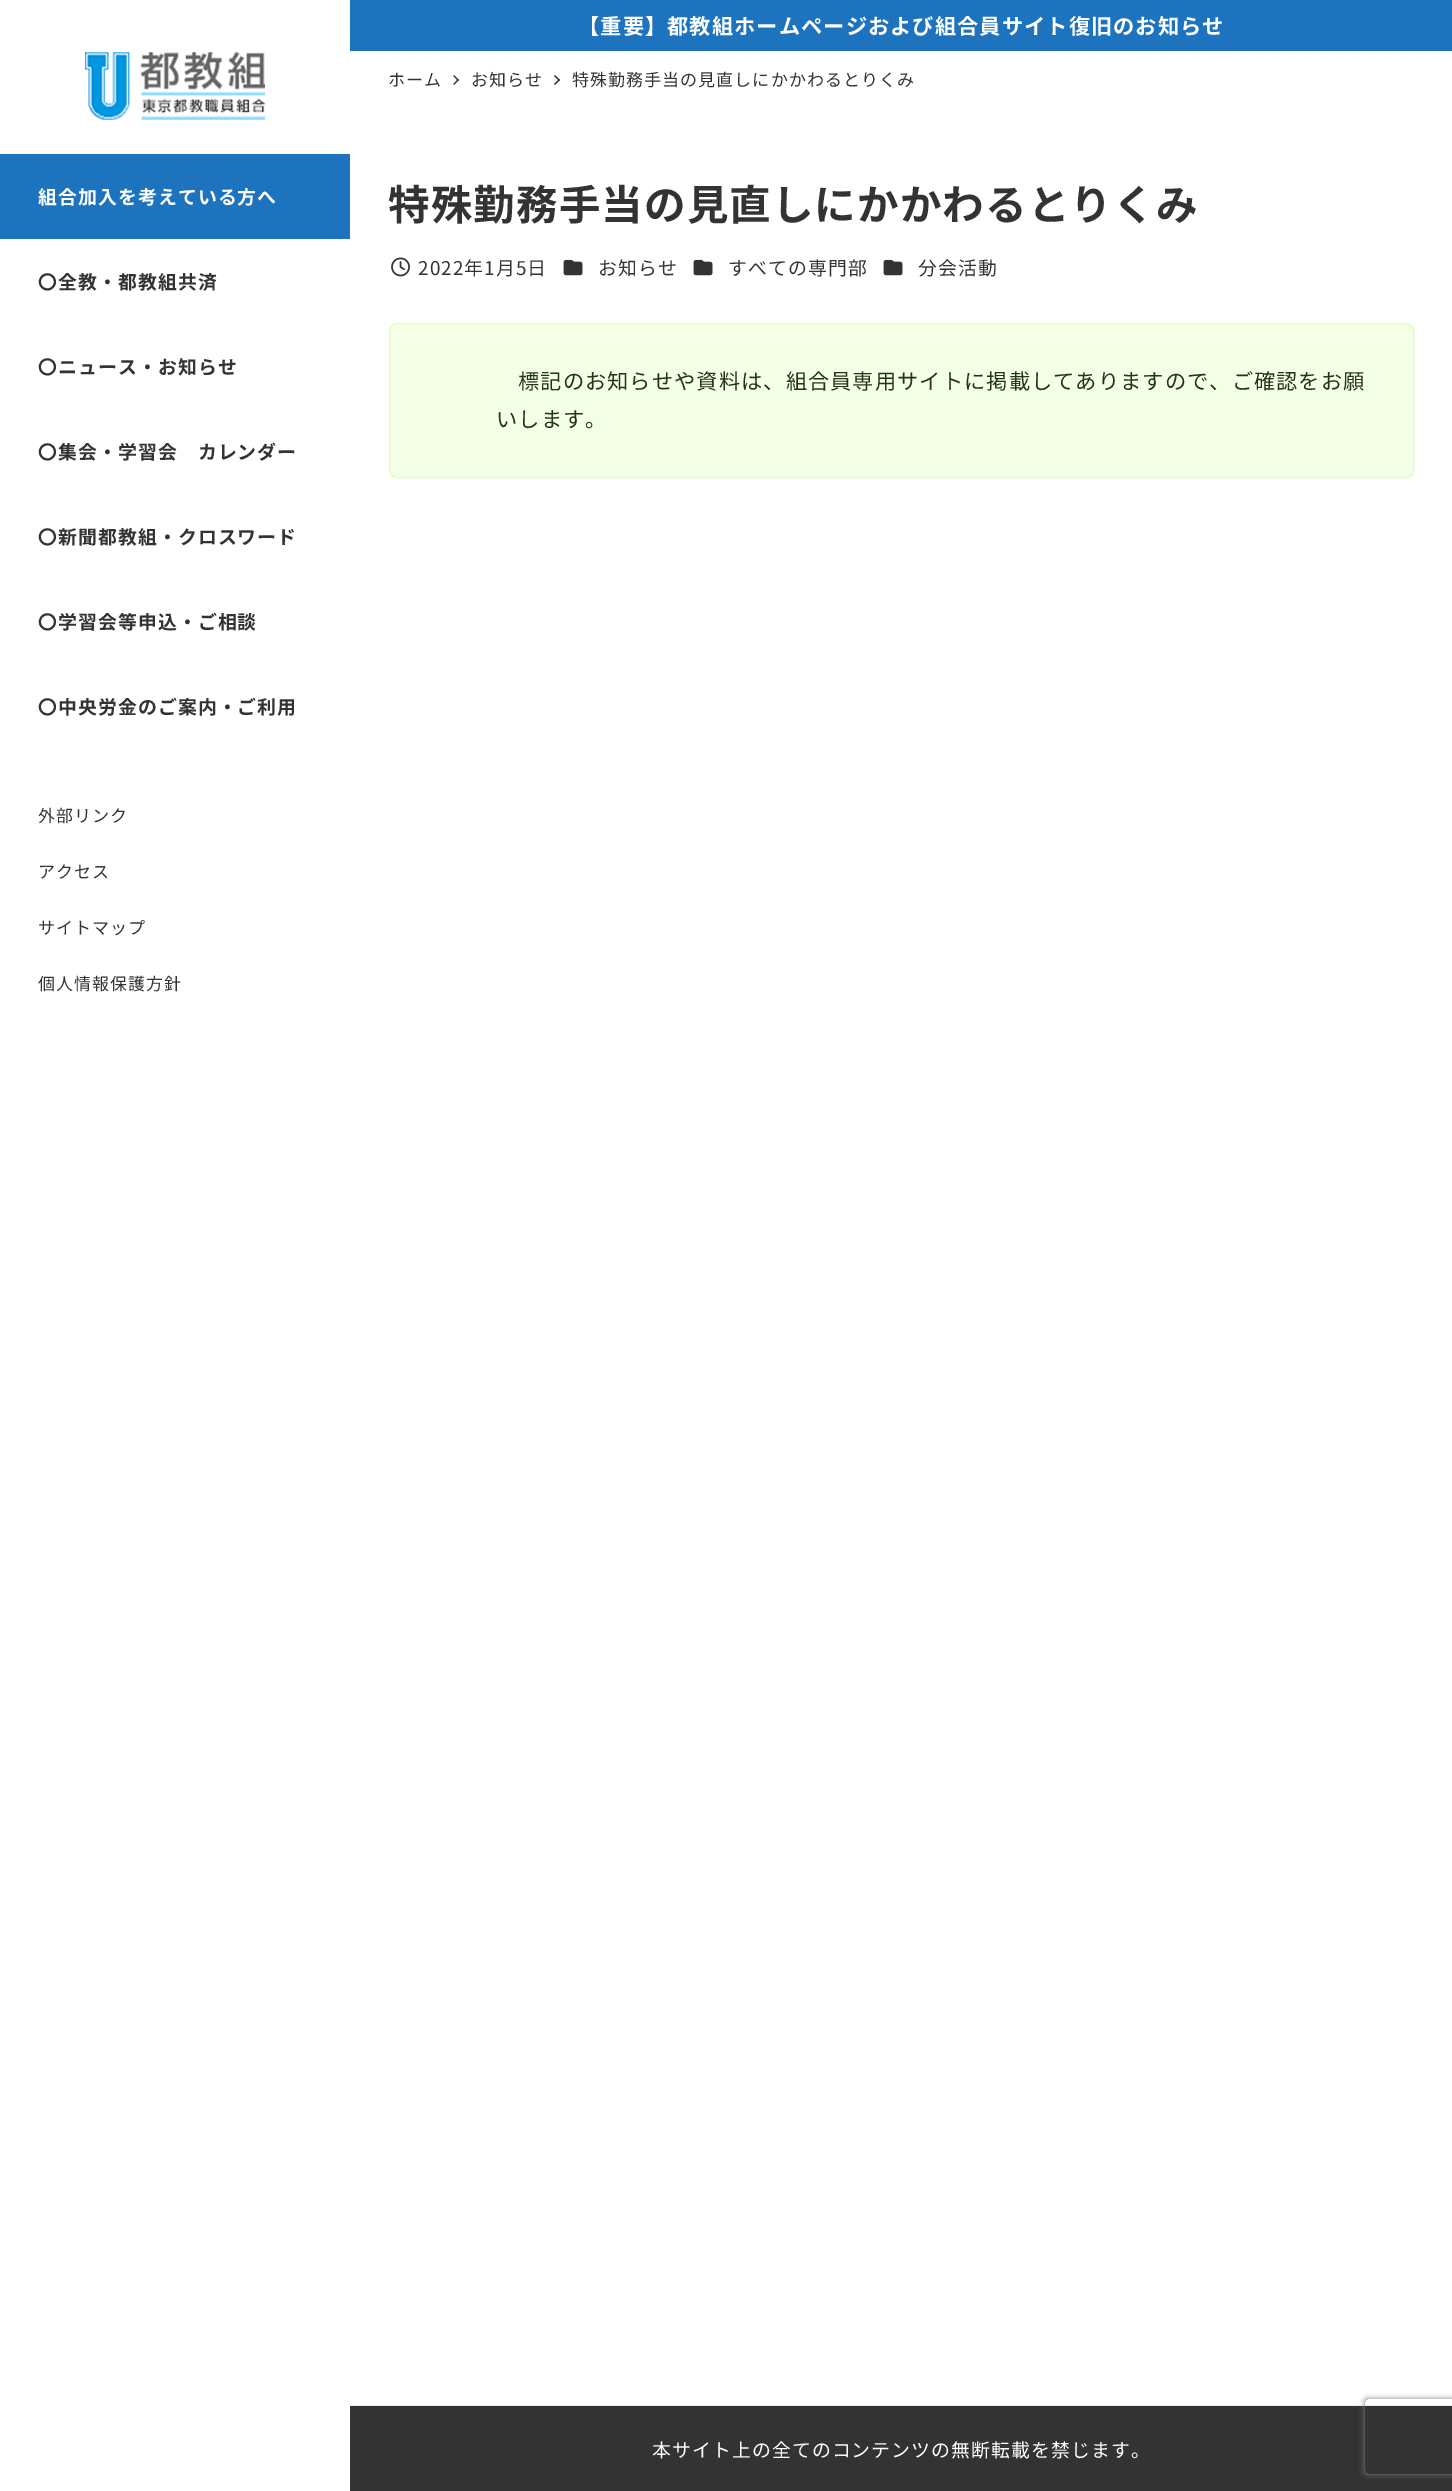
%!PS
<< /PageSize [1452 2491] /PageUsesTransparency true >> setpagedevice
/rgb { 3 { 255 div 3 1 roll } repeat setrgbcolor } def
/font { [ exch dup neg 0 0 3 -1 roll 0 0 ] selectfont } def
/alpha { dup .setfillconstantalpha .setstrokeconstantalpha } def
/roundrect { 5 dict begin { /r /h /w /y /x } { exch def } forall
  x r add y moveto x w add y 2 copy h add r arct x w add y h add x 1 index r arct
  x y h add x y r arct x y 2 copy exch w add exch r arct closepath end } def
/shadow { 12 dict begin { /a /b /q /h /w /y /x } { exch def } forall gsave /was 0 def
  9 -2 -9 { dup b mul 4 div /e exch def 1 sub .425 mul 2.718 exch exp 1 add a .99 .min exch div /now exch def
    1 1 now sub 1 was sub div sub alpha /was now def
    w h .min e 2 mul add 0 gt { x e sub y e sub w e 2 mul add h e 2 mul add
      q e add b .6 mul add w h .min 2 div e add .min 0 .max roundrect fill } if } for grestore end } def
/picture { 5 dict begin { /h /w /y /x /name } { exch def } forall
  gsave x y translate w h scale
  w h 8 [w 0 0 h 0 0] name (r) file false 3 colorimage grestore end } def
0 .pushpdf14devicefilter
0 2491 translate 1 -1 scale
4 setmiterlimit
255 255 255 rgb
0 0 1452 2491 rectfill
(img_01.rgb) 85 52 180 68 picture
30 115 190 rgb
0 154 350 85 rectfill
350 0 1102 51 rectfill
51 51 51 rgb
454 75 moveto 5 5 rlineto -1 1 rlineto -4.5 -5 rlineto closepath fill
458 79 moveto 1 1 rlineto -5 5 rlineto -0.5 -1 rlineto closepath fill
555 75 moveto 5 5 rlineto -1 1 rlineto -5 -5 rlineto closepath fill
559 79 moveto 1 1 rlineto -5 5 rlineto -1 -1 rlineto closepath fill
(img_02.rgb) 391 257 19 20 picture
(img_03.rgb) 563 259 20 17 picture
(img_03.rgb) 693 259 20 17 picture
(img_03.rgb) 883 259 20 17 picture
244 255 230 rgb
389.5 323.5 1024 154 7.5 roundrect gsave fill grestore
223 255 179 rgb
stroke
238 238 238 rgb
350 2405 1102 1 rectfill
51 51 51 rgb
350 2406 1102 85 rectfill
gsave
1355 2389 moveto 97 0 rlineto 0 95 rlineto -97 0 rlineto closepath 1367.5 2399 moveto 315 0 rlineto 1.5 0 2.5 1 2.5 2.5 rcurveto 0 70 rlineto 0 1.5 -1 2.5 -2.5 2.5 rcurveto -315 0 rlineto -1.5 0 -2.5 -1 -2.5 -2.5 rcurveto 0 -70 rlineto 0 -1.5 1 -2.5 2.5 -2.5 rcurveto closepath eoclip newpath
128 128 128 rgb
1365 2399 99 75 2.5 3 1 shadow
grestore
/NotoSansJP-Bold 18.9 font
255 255 255 rgb
38 204 moveto 1.05 0 (組合加入を考えている方へ) ashow
51 51 51 rgb
38 289 moveto 1.05 0 (〇全教・都教組共済) ashow
38 374 moveto 1.05 0 (〇ニュース・お知らせ) ashow
38 459 moveto 1.05 0 (〇集会・学習会　カレンダー) ashow
38 544 moveto 1.05 0 (〇新聞都教組・クロスワード) ashow
38 629 moveto 1.05 0 (〇学習会等申込・ご相談) ashow
38 714 moveto 1.05 0 (〇中央労金のご案内・ご利用) ashow
/NotoSansJP-Regular 17 font
38 822 moveto 1.05 0 (外部リンク) ashow
38 878 moveto 1.05 0 (アクセス) ashow
38 934 moveto 1.05 0 (サイトマップ) ashow
38 990 moveto 1.05 0 (個人情報保護方針) ashow
/NotoSansJP-Bold 21.25 font
255 255 255 rgb
578 34 moveto 1.05 0 (【重要】都教組ホームページおよび組合員サイト復旧のお知らせ) ashow
/NotoSansJP-Regular 17 font
51 51 51 rgb
388 86 moveto 1.05 0 (ホーム) ashow
471 86 moveto 1.05 0 (お知らせ) ashow
572 86 moveto 1.05 0 (特殊勤務手当の見直しにかかわるとりくみ) ashow
/NotoSansJP-Bold 41.6 font
388 220 moveto 1.05 0 (特殊勤務手当の見直しにかかわるとりくみ) ashow
/NotoSansJP-Regular 18.9 font
418 275 moveto 1.05 0 (2022年1月5日) ashow
598 275 moveto 1.05 0 (お知らせ) ashow
728 275 moveto 1.05 0 (すべての専門部) ashow
918 275 moveto 1.05 0 (分会活動) ashow
/NotoSansJP-Regular 21.25 font
40 50 27 rgb
518 389 moveto 1.05 0 (標記のお知らせや資料は、組合員専用サイトに掲載してありますので、ご確認をお願) ashow
496 427 moveto 1.05 0 (いします。) ashow
/NotoSansJP-Regular 18.9 font
255 255 255 rgb
652 2457 moveto 1.05 0 (本サイト上の全てのコンテンツの無断転載を禁じます。) ashow
.poppdf14devicefilter showpage
